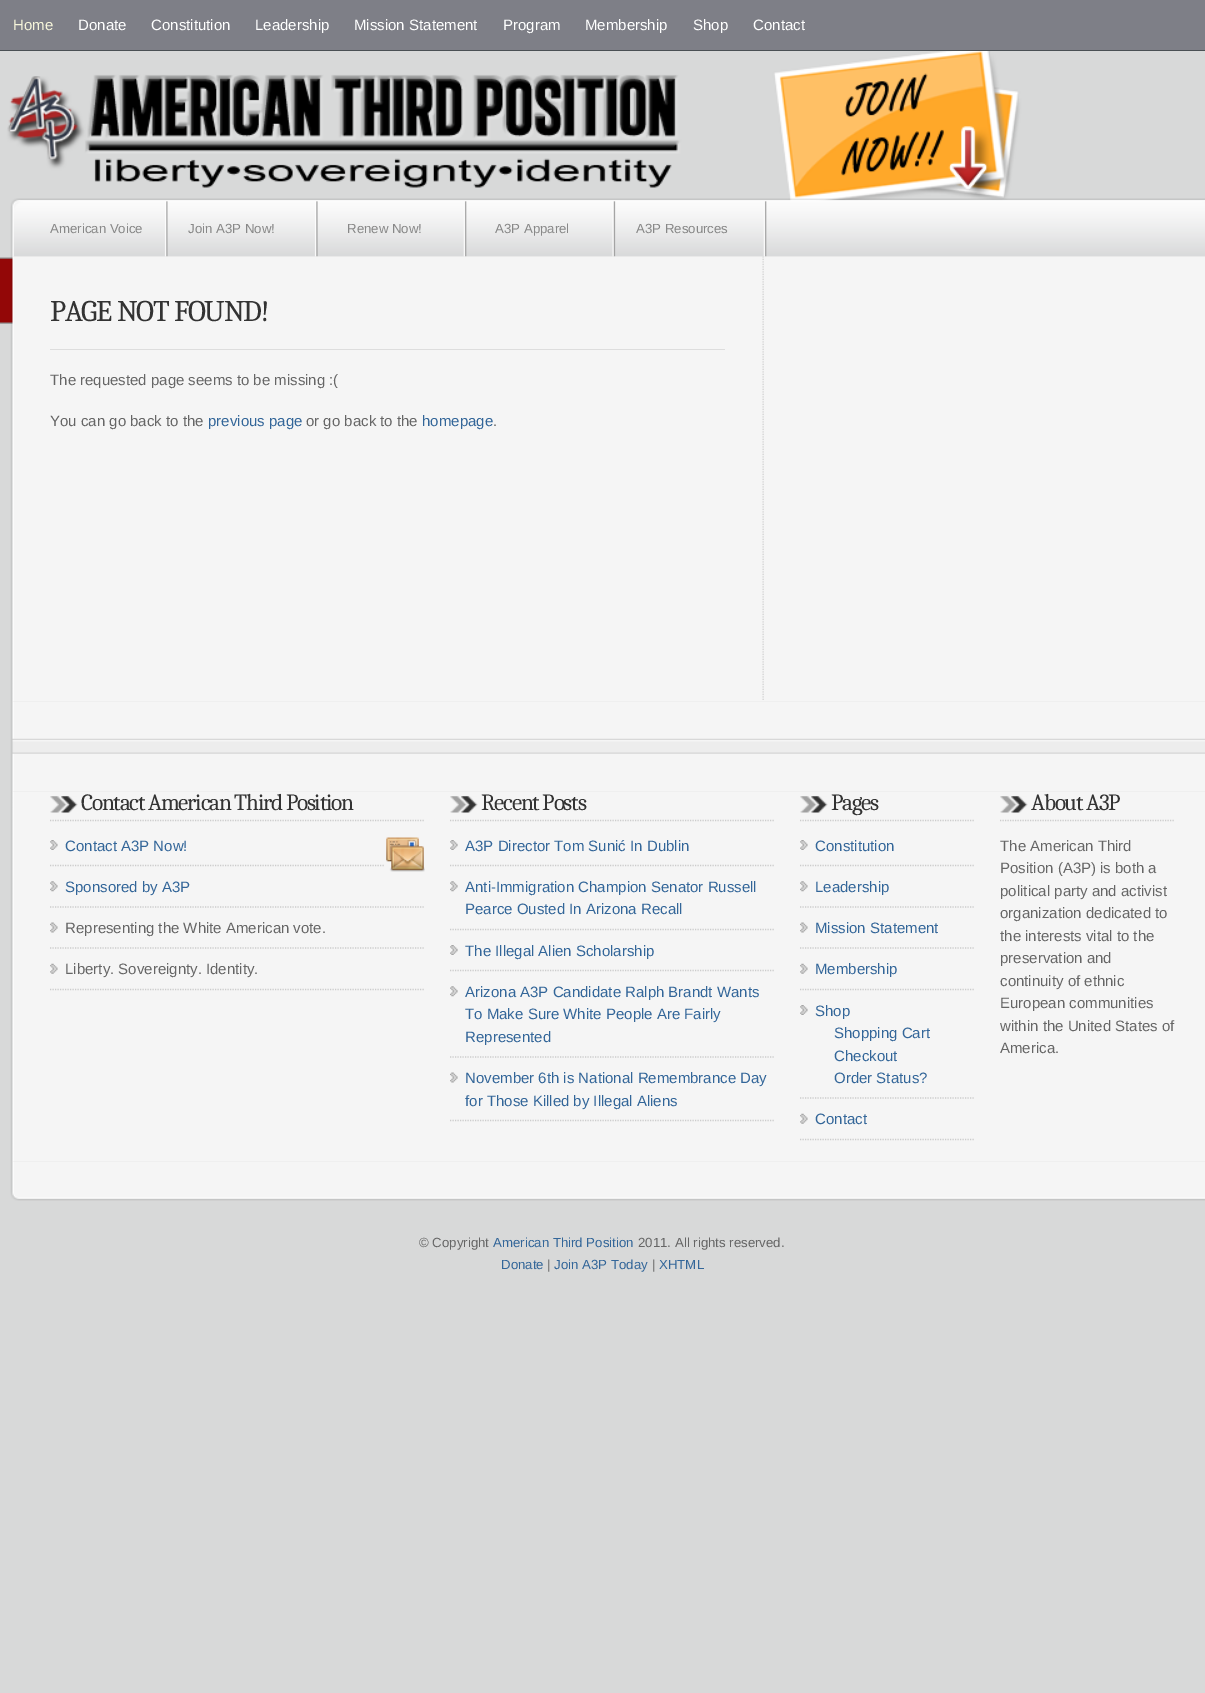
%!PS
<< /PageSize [1205 1693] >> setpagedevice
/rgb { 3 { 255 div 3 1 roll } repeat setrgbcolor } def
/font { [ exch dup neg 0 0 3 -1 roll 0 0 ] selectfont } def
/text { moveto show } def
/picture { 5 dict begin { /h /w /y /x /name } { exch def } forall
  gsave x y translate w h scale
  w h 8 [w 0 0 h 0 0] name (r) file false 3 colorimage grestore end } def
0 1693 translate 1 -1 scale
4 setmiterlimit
255 255 255 rgb
0 0 1205 1693 rectfill
(img_01.rgb) 0 51 1205 1642 picture
126 127 135 rgb
0 0 1205 50 rectfill
74 80 84 rgb
0 50 1205 1 rectfill
(img_03.rgb) 10 256 1195 446 picture
(img_04.rgb) 762 256 2 444 picture
(img_02.rgb) 10 198 1195 59 picture
221 221 221 rgb
50 349 675 1 rectfill
(img_05.rgb) 10 701 1195 91 picture
(img_06.rgb) 10 791 1195 371 picture
(img_07.rgb) 50 796 28 17 picture
204 204 204 rgb
1.2 setlinewidth
[1.25 1.25] 0 setdash
50 820.5 moveto 375 0 rlineto stroke
(img_08.rgb) 50 840 8 10 picture
50 865.5 moveto 335 0 rlineto stroke
(img_09.rgb) 50 881 8 11 picture
50 907 moveto 375 0 rlineto stroke
(img_10.rgb) 50 922 8 11 picture
50 948 moveto 375 0 rlineto stroke
(img_11.rgb) 50 963 8 11 picture
50 989.5 moveto 375 0 rlineto stroke
(img_12.rgb) 386 837 39 35 picture
(img_13.rgb) 450 796 28 17 picture
450 820.5 moveto 325 0 rlineto stroke
(img_14.rgb) 450 840 8 10 picture
450 865.5 moveto 325 0 rlineto stroke
(img_15.rgb) 450 881 8 11 picture
450 929.5 moveto 325 0 rlineto stroke
(img_14.rgb) 450 945 8 10 picture
450 970.5 moveto 325 0 rlineto stroke
(img_15.rgb) 450 986 8 11 picture
450 1057 moveto 325 0 rlineto stroke
(img_16.rgb) 450 1072 8 11 picture
450 1120.5 moveto 325 0 rlineto stroke
(img_07.rgb) 800 796 28 17 picture
800 820.5 moveto 175 0 rlineto stroke
(img_08.rgb) 800 840 8 10 picture
800 865.5 moveto 175 0 rlineto stroke
(img_09.rgb) 800 881 8 11 picture
800 907 moveto 175 0 rlineto stroke
(img_10.rgb) 800 922 8 11 picture
800 948 moveto 175 0 rlineto stroke
(img_11.rgb) 800 963 8 11 picture
800 989.5 moveto 175 0 rlineto stroke
(img_08.rgb) 800 1005 8 10 picture
800 1098 moveto 175 0 rlineto stroke
(img_11.rgb) 800 1113 8 11 picture
800 1139.5 moveto 175 0 rlineto stroke
(img_13.rgb) 1000 796 28 17 picture
1000 820.5 moveto 175 0 rlineto stroke
(img_17.rgb) 10 1161 1195 40 picture
/LiberationSans-Regular 15 font
247 246 219 rgb
(Home) 13 30 text
255 255 255 rgb
(Donate) 78 30 text
(Constitution) 151 30 text
(Leadership) 255 30 text
(Mission Statement) 354 30 text
(Program) 503 30 text
(Membership) 585 30 text
(Shop) 693 30 text
(Contact) 753 30 text
/LiberationSans-Regular 13.25 font
136 136 136 rgb
(American Voice) 50 233 text
(Join A3P Now!) 188 233 text
(Renew Now!) 347 233 text
(A3P Apparel) 495 233 text
(A3P Resources) 636 233 text
/Caladea-Regular 30 font
51 51 51 rgb
50 321 moveto -1.25 0 (PAGE NOT FOUND!) ashow
/LiberationSans-Regular 15 font
102 102 102 rgb
(The requested page seems to be missing :\() 50 385 text
(You can go back to the) 50 426 text
51 102 153 rgb
(previous page) 208 426 text
102 102 102 rgb
(or go back to the) 306 426 text
51 102 153 rgb
(homepage) 422 426 text
102 102 102 rgb
(.) 493 426 text
/Caladea-Regular 23.25 font
51 51 51 rgb
81 810 moveto -1.25 0 (Contact American Third Position) ashow
/LiberationSans-Regular 15 font
51 102 153 rgb
(Contact A3P Now!) 65 851 text
(Sponsored by A3P) 65 892 text
102 102 102 rgb
(Representing the White American vote.) 65 933 text
(Liberty. Sovereignty. Identity.) 65 974 text
/Caladea-Regular 23.25 font
51 51 51 rgb
481 810 moveto -1.25 0 (Recent Posts) ashow
/LiberationSans-Regular 15 font
51 102 153 rgb
(A3P Director Tom Sunić In Dublin) 465 851 text
(Anti-Immigration Champion Senator Russell) 465 892 text
(Pearce Ousted In Arizona Recall) 465 914 text
(The Illegal Alien Scholarship) 465 956 text
(Arizona A3P Candidate Ralph Brandt Wants) 465 997 text
(To Make Sure White People Are Fairly) 465 1019 text
(Represented) 465 1042 text
(November 6th is National Remembrance Day) 465 1083 text
(for Those Killed by Illegal Aliens) 465 1106 text
/Caladea-Regular 23.25 font
51 51 51 rgb
831 810 moveto -1.25 0 (Pages) ashow
/LiberationSans-Regular 15 font
51 102 153 rgb
(Constitution) 815 851 text
(Leadership) 815 892 text
(Mission Statement) 815 933 text
(Membership) 815 974 text
(Shop) 815 1016 text
(Shopping Cart) 834 1038 text
(Checkout) 834 1061 text
(Order Status?) 834 1083 text
(Contact) 815 1124 text
/Caladea-Regular 23.25 font
51 51 51 rgb
1031 810 moveto -1.25 0 (About A3P) ashow
/LiberationSans-Regular 15 font
102 102 102 rgb
(The American Third) 1000 851 text
(Position \(A3P\) is both a) 1000 873 text
(political party and activist) 1000 896 text
(organization dedicated to) 1000 918 text
(the interests vital to the) 1000 941 text
(preservation and) 1000 963 text
(continuity of ethnic) 1000 986 text
(European communities) 1000 1008 text
(within the United States of) 1000 1031 text
(America.) 1000 1053 text
/LiberationSans-Regular 13.25 font
(© Copyright) 419 1247 text
51 102 153 rgb
(American Third Position) 493 1247 text
102 102 102 rgb
(2011. All rights reserved.) 638 1247 text
51 102 153 rgb
(Donate) 501 1269 text
102 102 102 rgb
(|) 547 1269 text
51 102 153 rgb
(Join A3P Today) 554 1269 text
102 102 102 rgb
(|) 652 1269 text
51 102 153 rgb
(XHTML) 659 1269 text
showpage
